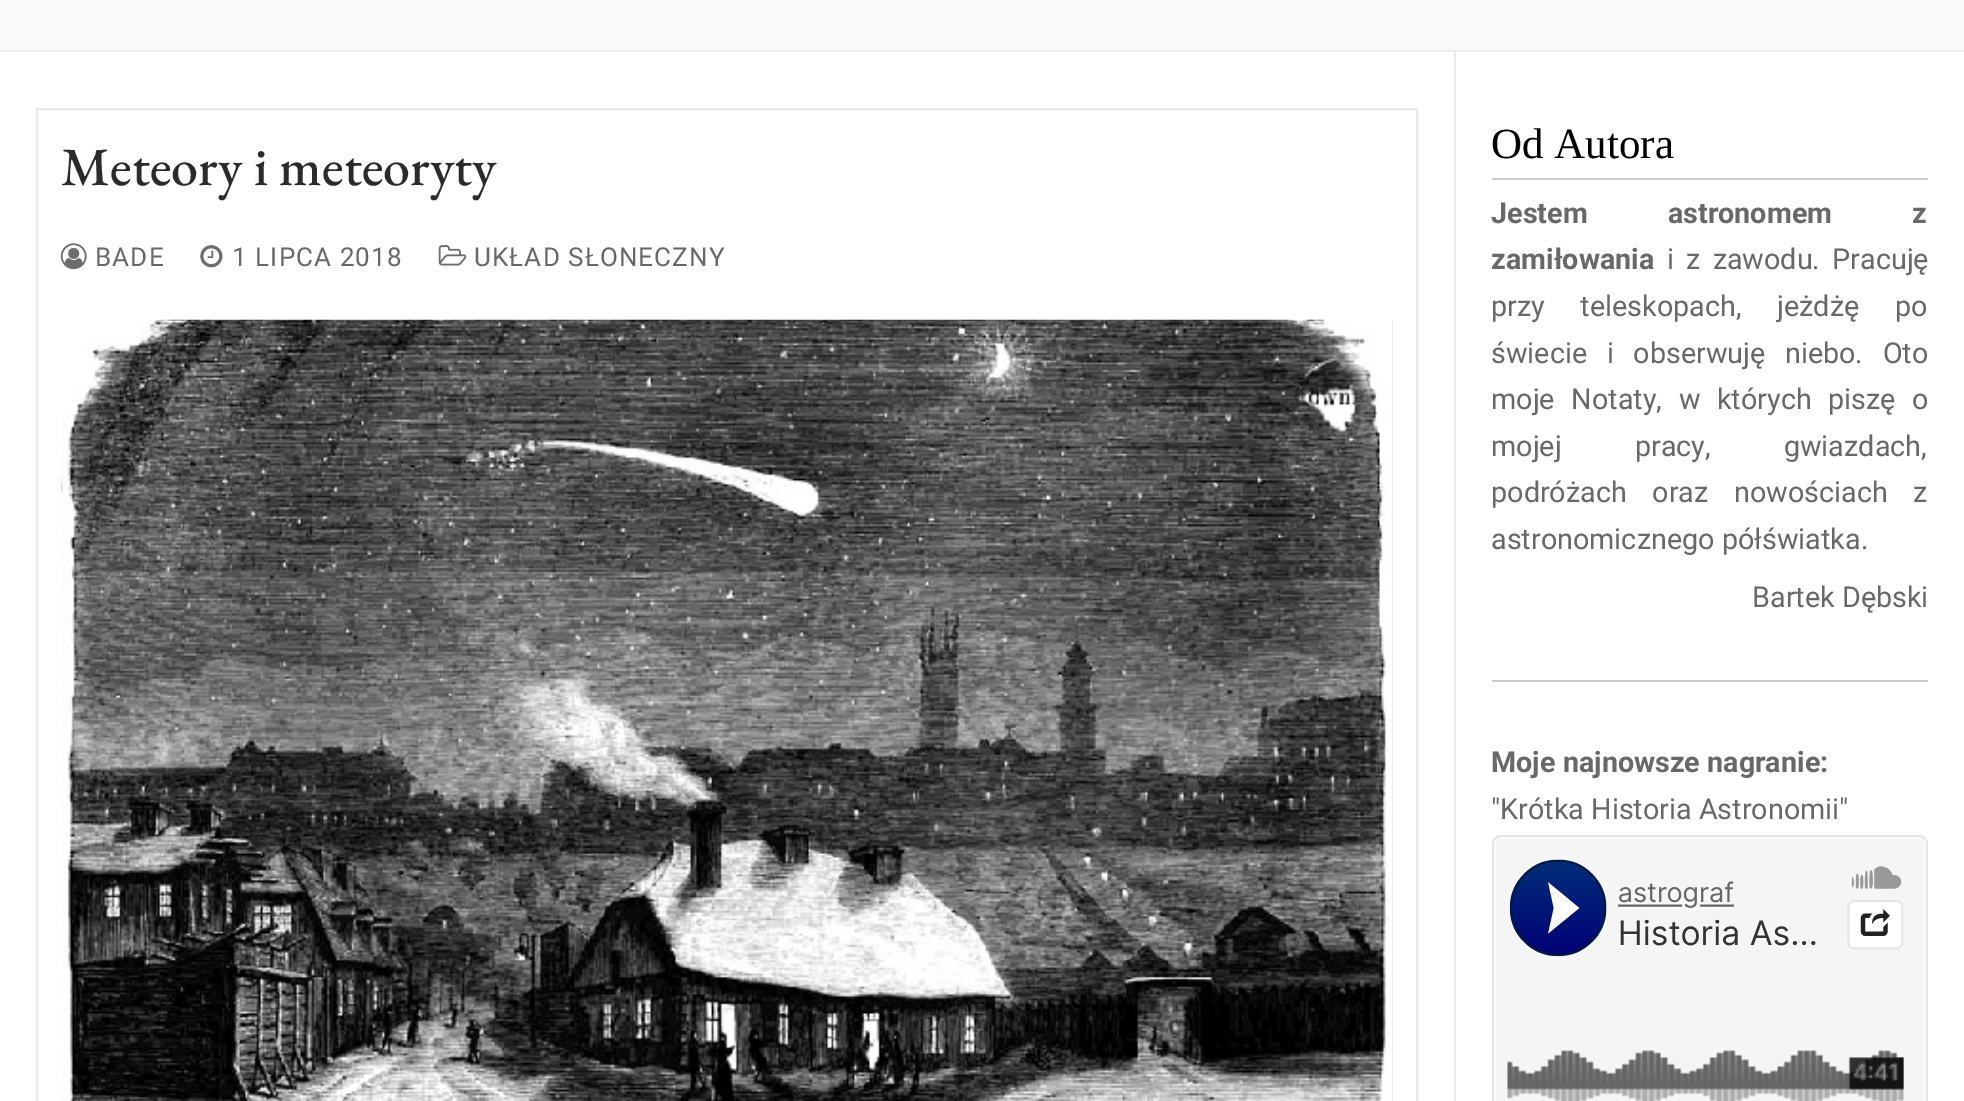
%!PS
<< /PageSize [1964 1101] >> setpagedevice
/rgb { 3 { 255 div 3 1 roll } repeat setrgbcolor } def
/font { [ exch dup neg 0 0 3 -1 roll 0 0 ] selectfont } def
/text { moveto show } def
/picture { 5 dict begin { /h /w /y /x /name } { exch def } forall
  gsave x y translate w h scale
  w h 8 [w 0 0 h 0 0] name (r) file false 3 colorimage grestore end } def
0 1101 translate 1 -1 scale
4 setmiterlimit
249 249 249 rgb
0 0 1964 1101 rectfill
234 236 238 rgb
0 50 1964 2 rectfill
255 255 255 rgb
0 52 1964 1049 rectfill
234 236 238 rgb
1454 52 2 1049 rectfill
234 234 234 rgb
2 setlinewidth
37 109 1380 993 rectstroke
(img_01.rgb) 60 243 27 27 picture
(img_02.rgb) 200 245 23 23 picture
(img_03.rgb) 438 245 29 21 picture
213 213 213 rgb
1392 320 1 781 rectfill
(img_04.rgb) 61 319 1332 782 picture
204 204 204 rgb
1492 178 436 2 rectfill
1492 680 436 2 rectfill
(img_05.rgb) 1492 835 436 266 picture
/EBGaramond-Medium 54 font
43 43 43 rgb
(Meteory i meteoryty) 61 185 text
/Roboto-Regular 26 font
104 104 104 rgb
95 266 moveto 1.1 0 (BADE) ashow
232 266 moveto 1.1 0 (1 LIPCA 2018) ashow
474 266 moveto 1.1 0 (UKŁAD SŁONECZNY) ashow
/LiberationSerif-Regular 43 font
0 0 0 rgb
(Od Autora) 1491 158 text
/Roboto-Bold 28.75 font
104 104 104 rgb
1491 223 moveto 73 0 32 (Jestem astronomem z) widthshow
(zamiłowania) 1491 269 text
/Roboto-Regular 28.75 font
1667 269 moveto 5 0 32 (i z zawodu. Pracuję) widthshow
1491 316 moveto 28.5 0 32 (przy teleskopach, jeżdżę po) widthshow
1491 363 moveto 12.5 0 32 (świecie i obserwuję niebo. Oto) widthshow
1491 409 moveto 9.5 0 32 (moje Notaty, w których piszę o) widthshow
1491 456 moveto 66 0 32 (mojej pracy, gwiazdach,) widthshow
1491 502 moveto 18.5 0 32 (podróżach oraz nowościach z) widthshow
(astronomicznego półświatka.) 1491 549 text
(Bartek Dębski) 1752 607 text
/Roboto-Bold 28.75 font
(Moje najnowsze nagranie:) 1491 772 text
/Roboto-Regular 28.75 font
("Krótka Historia Astronomii") 1491 819 text
showpage
